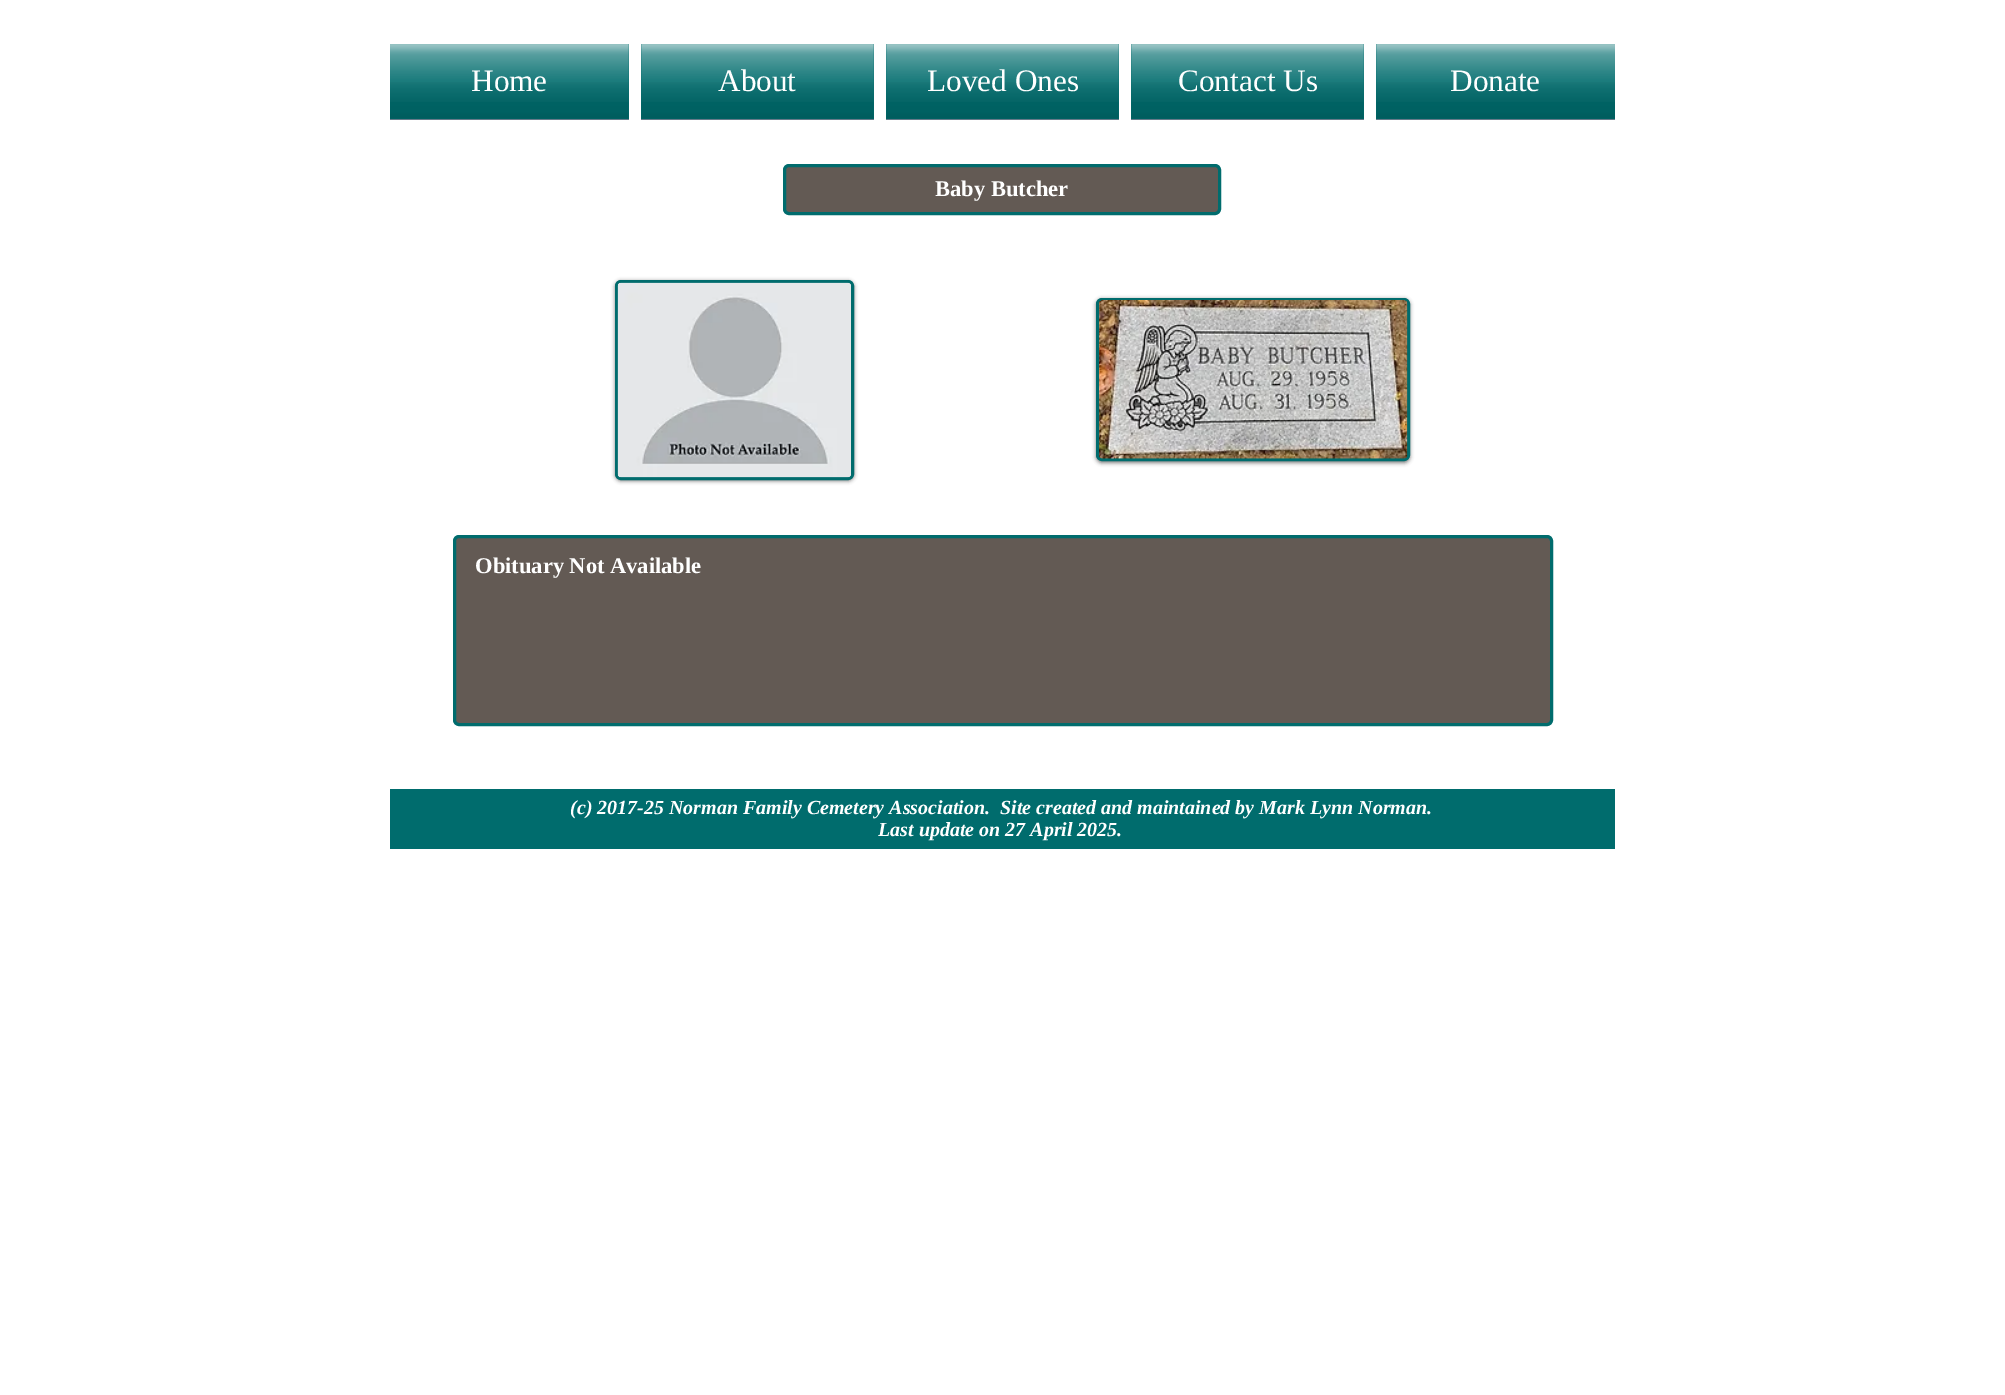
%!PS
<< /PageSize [2005 1395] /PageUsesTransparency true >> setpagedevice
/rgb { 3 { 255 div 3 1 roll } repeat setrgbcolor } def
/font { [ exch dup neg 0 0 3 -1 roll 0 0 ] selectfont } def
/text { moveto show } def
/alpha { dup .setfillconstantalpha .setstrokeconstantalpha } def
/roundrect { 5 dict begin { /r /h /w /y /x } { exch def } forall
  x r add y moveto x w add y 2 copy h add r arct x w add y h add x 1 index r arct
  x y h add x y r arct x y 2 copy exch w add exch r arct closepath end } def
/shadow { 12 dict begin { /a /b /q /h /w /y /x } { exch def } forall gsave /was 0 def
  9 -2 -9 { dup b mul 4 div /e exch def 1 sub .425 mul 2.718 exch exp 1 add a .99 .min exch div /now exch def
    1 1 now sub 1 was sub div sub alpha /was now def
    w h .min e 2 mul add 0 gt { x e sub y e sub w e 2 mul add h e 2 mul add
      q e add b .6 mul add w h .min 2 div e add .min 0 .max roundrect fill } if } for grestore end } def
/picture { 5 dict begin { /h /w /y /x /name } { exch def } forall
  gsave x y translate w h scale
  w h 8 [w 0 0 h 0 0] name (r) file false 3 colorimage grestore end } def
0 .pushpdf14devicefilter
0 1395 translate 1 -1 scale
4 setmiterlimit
255 255 255 rgb
0 0 2005 1395 rectfill
103 122 137 rgb
390 119 moveto 0 1 rlineto 239 0 rlineto 0 -75 rlineto 0 74 rlineto closepath fill
0 108 109 rgb
390 44 239 75 rectfill
(img_01.rgb) 390 44 239 57 picture
(img_02.rgb) 390 82 239 37 picture
103 122 137 rgb
641 45 moveto 0 75 rlineto 233 0 rlineto 0 -75 rlineto 0 74 rlineto -233 0 rlineto closepath fill
0 108 109 rgb
641 44 233 75 rectfill
(img_03.rgb) 641 44 233 57 picture
(img_04.rgb) 641 82 233 37 picture
103 122 137 rgb
886 45 moveto 0 75 rlineto 233 0 rlineto 0 -75 rlineto 0 74 rlineto -233 0 rlineto closepath fill
0 108 109 rgb
886 44 233 75 rectfill
(img_03.rgb) 886 44 233 57 picture
(img_04.rgb) 886 82 233 37 picture
103 122 137 rgb
1131 45 moveto 0 75 rlineto 233 0 rlineto 0 -75 rlineto 0 74 rlineto -233 0 rlineto closepath fill
0 108 109 rgb
1131 44 233 75 rectfill
(img_03.rgb) 1131 44 233 57 picture
(img_04.rgb) 1131 82 233 37 picture
103 122 137 rgb
1376 45 moveto 0 75 rlineto 239 0 rlineto 0 -1 rlineto -239 0 rlineto closepath fill
0 108 109 rgb
1376 44 239 75 rectfill
(img_05.rgb) 1376 44 239 57 picture
(img_06.rgb) 1376 82 239 37 picture
99 90 84 rgb
784.5 165.5 435 48 4.5 roundrect gsave fill grestore
0 108 109 rgb
3 setlinewidth
stroke
0 0 0 rgb
615 281 239 200 6 2 0.5 shadow
0 108 109 rgb
616.5 281.5 236 197 4.5 roundrect stroke
(img_07.rgb) 617 282 234 196 picture
0 0 0 rgb
1096 299 314 164 6 2 0.5 shadow
0 108 109 rgb
1097.5 299.5 311 160 4.5 roundrect stroke
(img_08.rgb) 1099 300 309 159 picture
99 90 84 rgb
454.5 536.5 1097 188 4.5 roundrect gsave fill grestore
0 108 109 rgb
stroke
390 789 1225 60 rectfill
/LiberationSerif-Regular 31.25 font
255 255 255 rgb
(Home) 471 91 text
(About) 718 91 text
(Loved Ones) 927 91 text
(Contact Us) 1178 91 text
(Donate) 1450 91 text
/LiberationSerif-Bold 22.5 font
(Baby Butcher) 935 196 text
(Obituary Not Available) 475 573 text
/LiberationSerif-BoldItalic 20 font
(\(c\) 2017-25 Norman Family Cemetery Association.  Site created and maintained by Mark Lynn Norman.) 570 814 text
(Last update on 27 April 2025.) 878 836 text
.poppdf14devicefilter showpage
